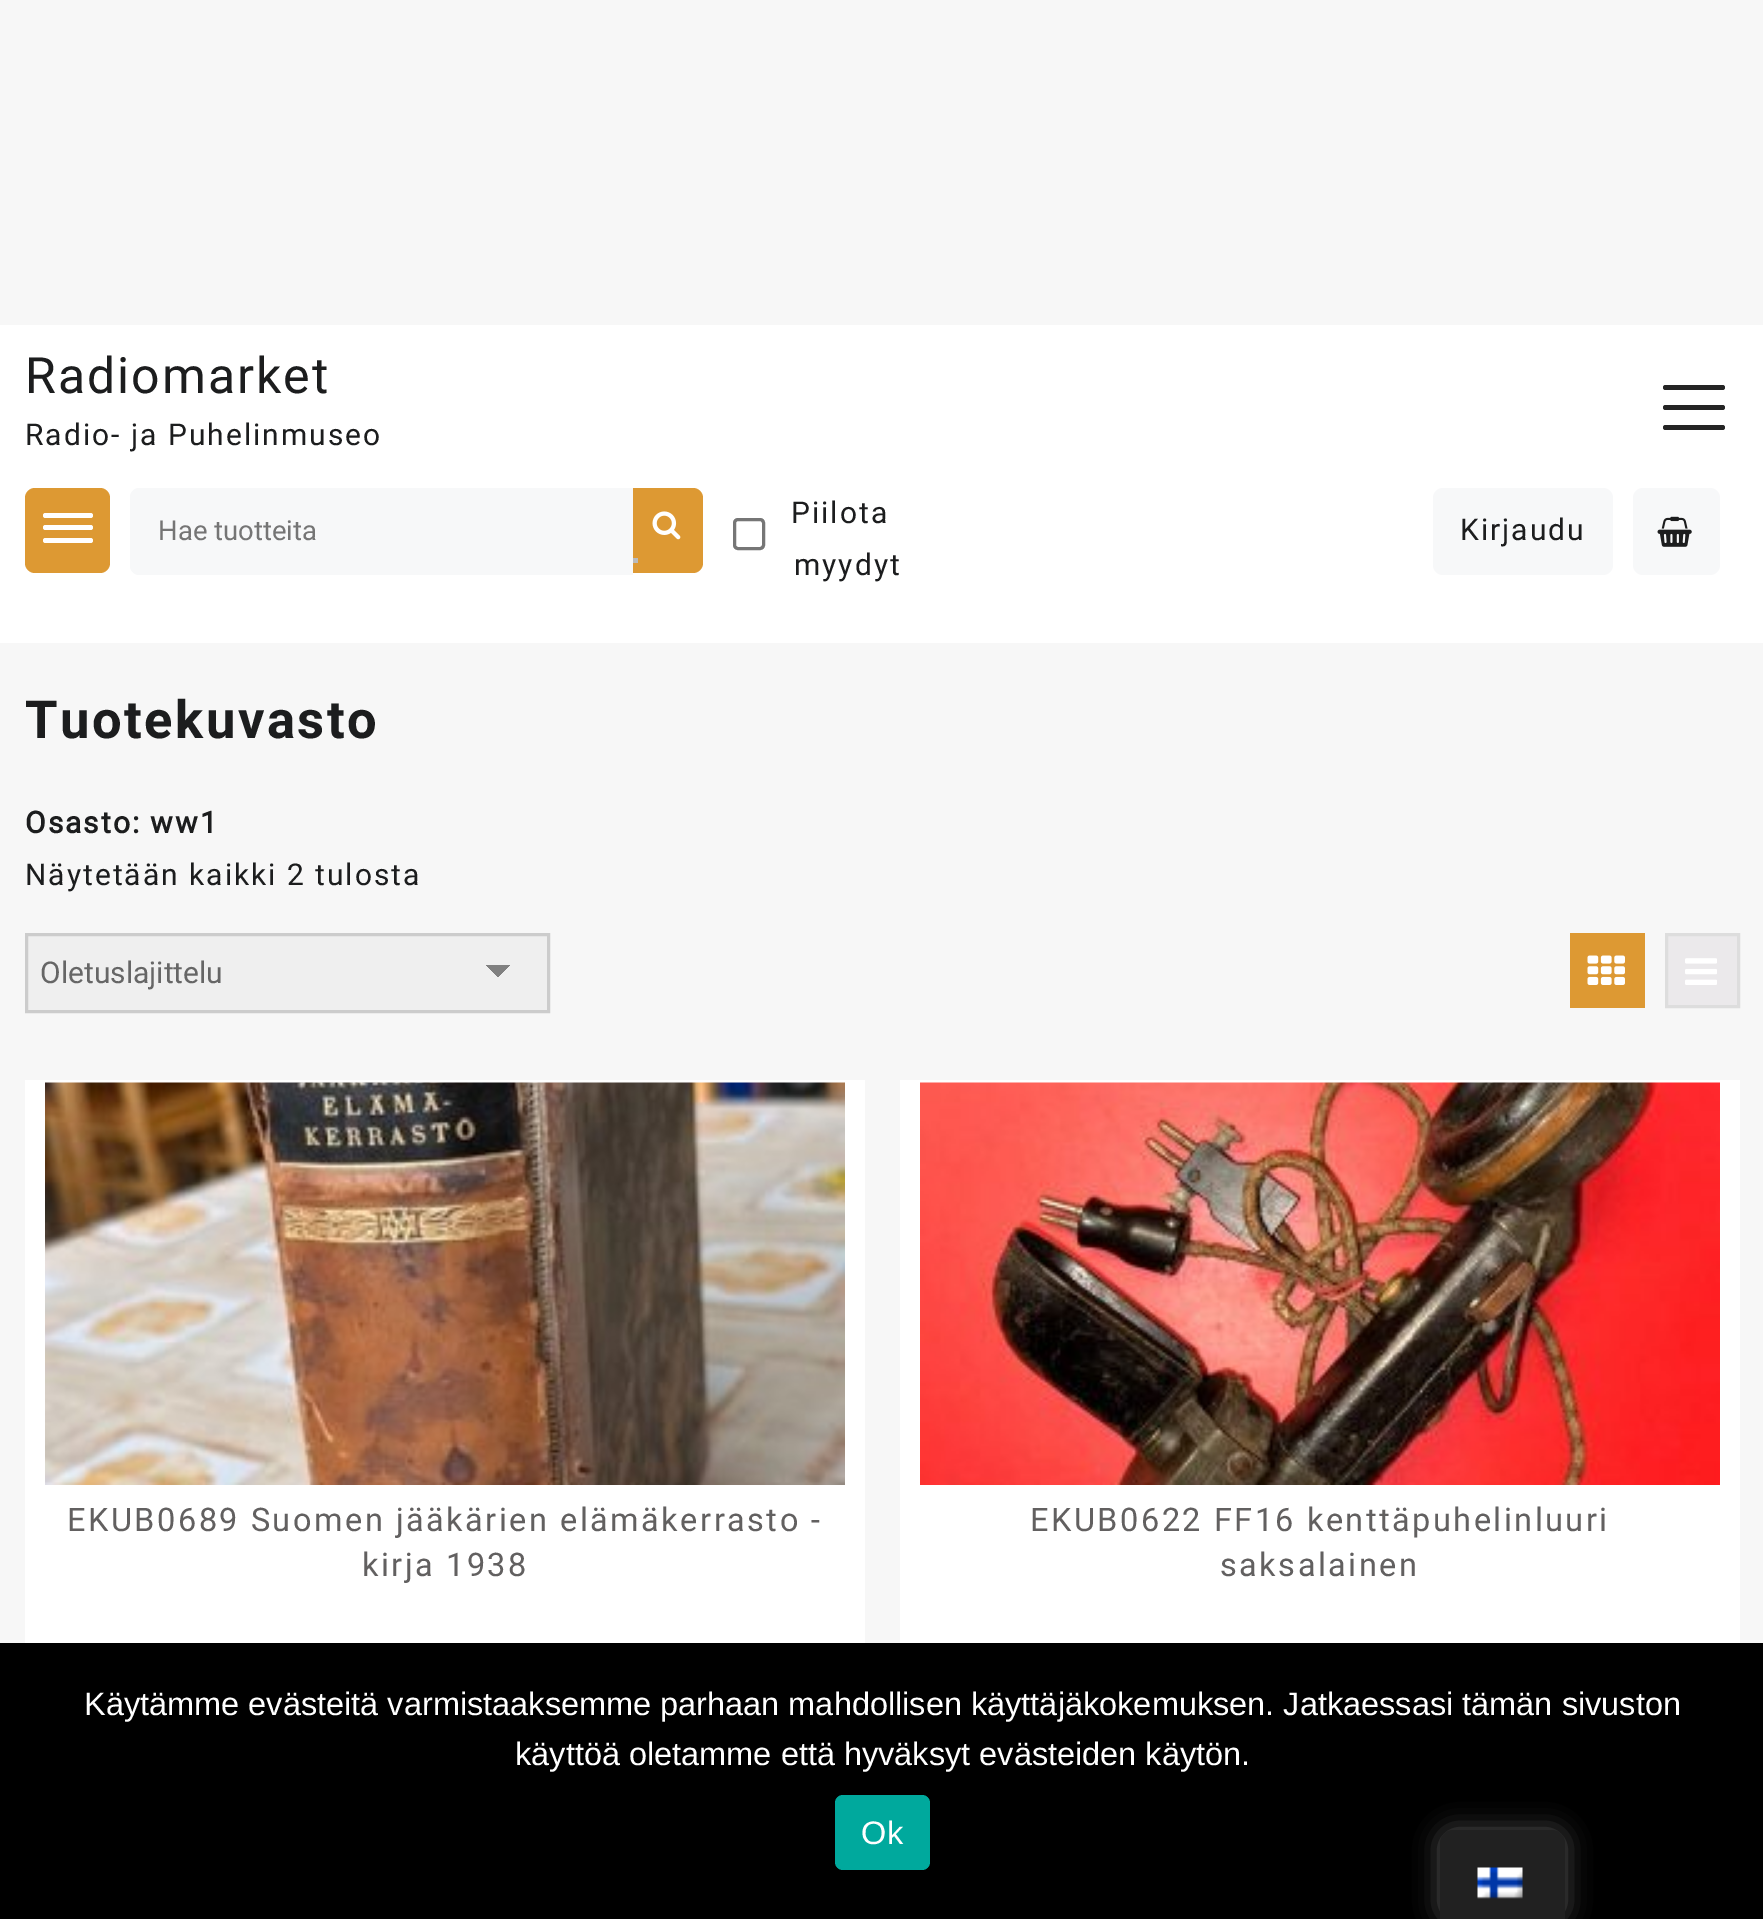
%!PS
<< /PageSize [1763 1919] /PageUsesTransparency true >> setpagedevice
/rgb { 3 { 255 div 3 1 roll } repeat setrgbcolor } def
/font { [ exch dup neg 0 0 3 -1 roll 0 0 ] selectfont } def
/text { moveto show } def
/alpha { dup .setfillconstantalpha .setstrokeconstantalpha } def
/roundrect { 5 dict begin { /r /h /w /y /x } { exch def } forall
  x r add y moveto x w add y 2 copy h add r arct x w add y h add x 1 index r arct
  x y h add x y r arct x y 2 copy exch w add exch r arct closepath end } def
/shadow { 12 dict begin { /a /b /q /h /w /y /x } { exch def } forall gsave /was 0 def
  9 -2 -9 { dup b mul 4 div /e exch def 1 sub .425 mul 2.718 exch exp 1 add a .99 .min exch div /now exch def
    1 1 now sub 1 was sub div sub alpha /was now def
    w h .min e 2 mul add 0 gt { x e sub y e sub w e 2 mul add h e 2 mul add
      q e add b .6 mul add w h .min 2 div e add .min 0 .max roundrect fill } if } for grestore end } def
/picture { 5 dict begin { /h /w /y /x /name } { exch def } forall
  gsave x y translate w h scale
  w h 8 [w 0 0 h 0 0] name (r) file false 3 colorimage grestore end } def
0 .pushpdf14devicefilter
0 1919 translate 1 -1 scale
4 setmiterlimit
247 247 247 rgb
0 0 1763 1919 rectfill
255 255 255 rgb
0 325 1763 318 rectfill
36 36 36 rgb
1663 385 62 5 2.5 roundrect fill
1663 405 62 5 2.5 roundrect fill
1663 425 62 5 2.5 roundrect fill
221 153 51 rgb
25 488 85 85 10 roundrect fill
255 255 255 rgb
43 513 50 5 2.5 roundrect fill
43 525 50 5 2.5 roundrect fill
43 538 50 5 2.5 roundrect fill
247 248 249 rgb
140 488 moveto 493 0 rlineto 0 87 rlineto -493 0 rlineto -5.5 0 -10 -4.5 -10 -10 rcurveto 0 -67 rlineto 0 -5.5 4.5 -10 10 -10 rcurveto closepath fill
140 488 moveto 492 0 rlineto 0 87 rlineto -492 0 rlineto -6 0 -10 -4 -10 -10 rcurveto 0 -67 rlineto 0 -6 4 -10 10 -10 rcurveto closepath 140 490 moveto 492 0 rlineto 0 82 rlineto -492 0 rlineto -4 0 -8 -3 -8 -7 rcurveto 0 -67 rlineto 0 -5 4 -8 8 -8 rcurveto closepath eofill
221 153 51 rgb
633 488 moveto 60 0 rlineto 5.5 0 10 4.5 10 10 rcurveto 0 65 rlineto 0 5.5 -4.5 10 -10 10 rcurveto -60 0 rlineto closepath fill
(img_01.rgb) 652 511 29 29 picture
118 118 118 rgb
3 setlinewidth
734.5 519.5 29 29 3.5 roundrect stroke
187 187 187 rgb
633 558 5 5 rectfill
247 248 249 rgb
1433 488 180 87 10 roundrect fill
1633 488 87 87 10 roundrect fill
(img_02.rgb) 1657 516 35 31 picture
239 239 239 rgb
28 936 519 74 rectfill
gsave 498 965 moveto 12 0 rlineto 0 12 rlineto -12 0 rlineto closepath clip newpath
<< /ShadingType 2 /ColorSpace /DeviceRGB /Coords [498 965 510 978] /Extend [true true] /Function << /FunctionType 3 /Domain [0 1] /Functions [<< /FunctionType 2 /Domain [0 1] /C0 [0.502 0.502 0.502] /C1 [0.502 0.502 0.502] /N 1 >> << /FunctionType 2 /Domain [0 1] /C0 [0.937 0.937 0.937] /C1 [0.937 0.937 0.937] /N 1 >>] /Bounds [0.5] /Encode [0 1 0 1] >> >> shfill grestore
gsave 485 965 moveto 13 0 rlineto 0 12 rlineto -13 0 rlineto closepath clip newpath
<< /ShadingType 2 /ColorSpace /DeviceRGB /Coords [485 978 498 965] /Extend [true true] /Function << /FunctionType 3 /Domain [0 1] /Functions [<< /FunctionType 2 /Domain [0 1] /C0 [0.937 0.937 0.937] /C1 [0.937 0.937 0.937] /N 1 >> << /FunctionType 2 /Domain [0 1] /C0 [0.502 0.502 0.502] /C1 [0.502 0.502 0.502] /N 1 >>] /Bounds [0.5] /Encode [0 1 0 1] >> >> shfill grestore
204 204 204 rgb
26.5 934.5 522 77 rectstroke
221 153 51 rgb
1570 933 75 75 rectfill
(img_03.rgb) 1587 955 38 30 picture
235 233 235 rgb
1666.5 934.5 moveto 72 0 rlineto 0 72 rlineto -72 0 rlineto closepath gsave fill grestore
221 221 221 rgb
stroke
(img_04.rgb) 1685 958 32 27 picture
255 255 255 rgb
25 1080 840 563 rectfill
(img_05.rgb) 45 1082 800 403 picture
900 1080 840 563 rectfill
(img_06.rgb) 920 1082 800 403 picture
0 0 0 rgb
0 1643 1763 276 rectfill
0 169 157 rgb
835 1795 95 75 8 roundrect fill
85 85 85 rgb
1440 1830 125 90 13 12.5 1 shadow
33 33 33 rgb
1453 1830 moveto 99 0 rlineto 7 0 13 6 13 13 rcurveto 0 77 rlineto -125 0 rlineto 0 -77 rlineto 0 -7 6 -13 13 -13 rcurveto closepath fill
(img_07.rgb) 1477 1867 46 32 picture
/Roboto-Regular 50 font
28 29 30 rgb
25 393 moveto 2 0 (Radiomarket) ashow
/Roboto-Regular 30 font
25 445 moveto 2 0 (Radio- ja Puhelinmuseo) ashow
/Roboto-Regular 27.5 font
117 117 117 rgb
(Hae tuotteita) 158 540 text
/Roboto-Regular 30 font
28 29 30 rgb
791 523 moveto 2 0 (Piilota) ashow
794 575 moveto 2 0 (myydyt) ashow
1460 540 moveto 2 0 (Kirjaudu) ashow
/Roboto-Bold 52.5 font
25 738 moveto 2.5 0 (Tuotekuvasto) ashow
/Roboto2-Bold 30 font
25 833 moveto 2 0 (Osasto: ww1) ashow
/Roboto-Regular 30 font
25 885 moveto 2 0 (Näytetään kaikki 2 tulosta) ashow
102 102 102 rgb
(Oletuslajittelu) 40 983 text
/Roboto-Regular 32.5 font
98 96 96 rgb
67 1531 moveto 2.5 0 (EKUB0689 Suomen jääkärien elämäkerrasto -) ashow
362 1576 moveto 2.5 0 (kirja 1938) ashow
1030 1531 moveto 2.5 0 (EKUB0622 FF16 kenttäpuhelinluuri) ashow
1220 1576 moveto 2.5 0 (saksalainen) ashow
/LiberationSans-Regular 32.5 font
255 255 255 rgb
(Käytämme evästeitä varmistaaksemme parhaan mahdollisen käyttäjäkokemuksen. Jatkaessasi tämän sivuston) 84 1715 text
(käyttöä oletamme että hyväksyt evästeiden käytön.) 515 1765 text
861 1844 moveto 1 0 (Ok) ashow
.poppdf14devicefilter showpage
